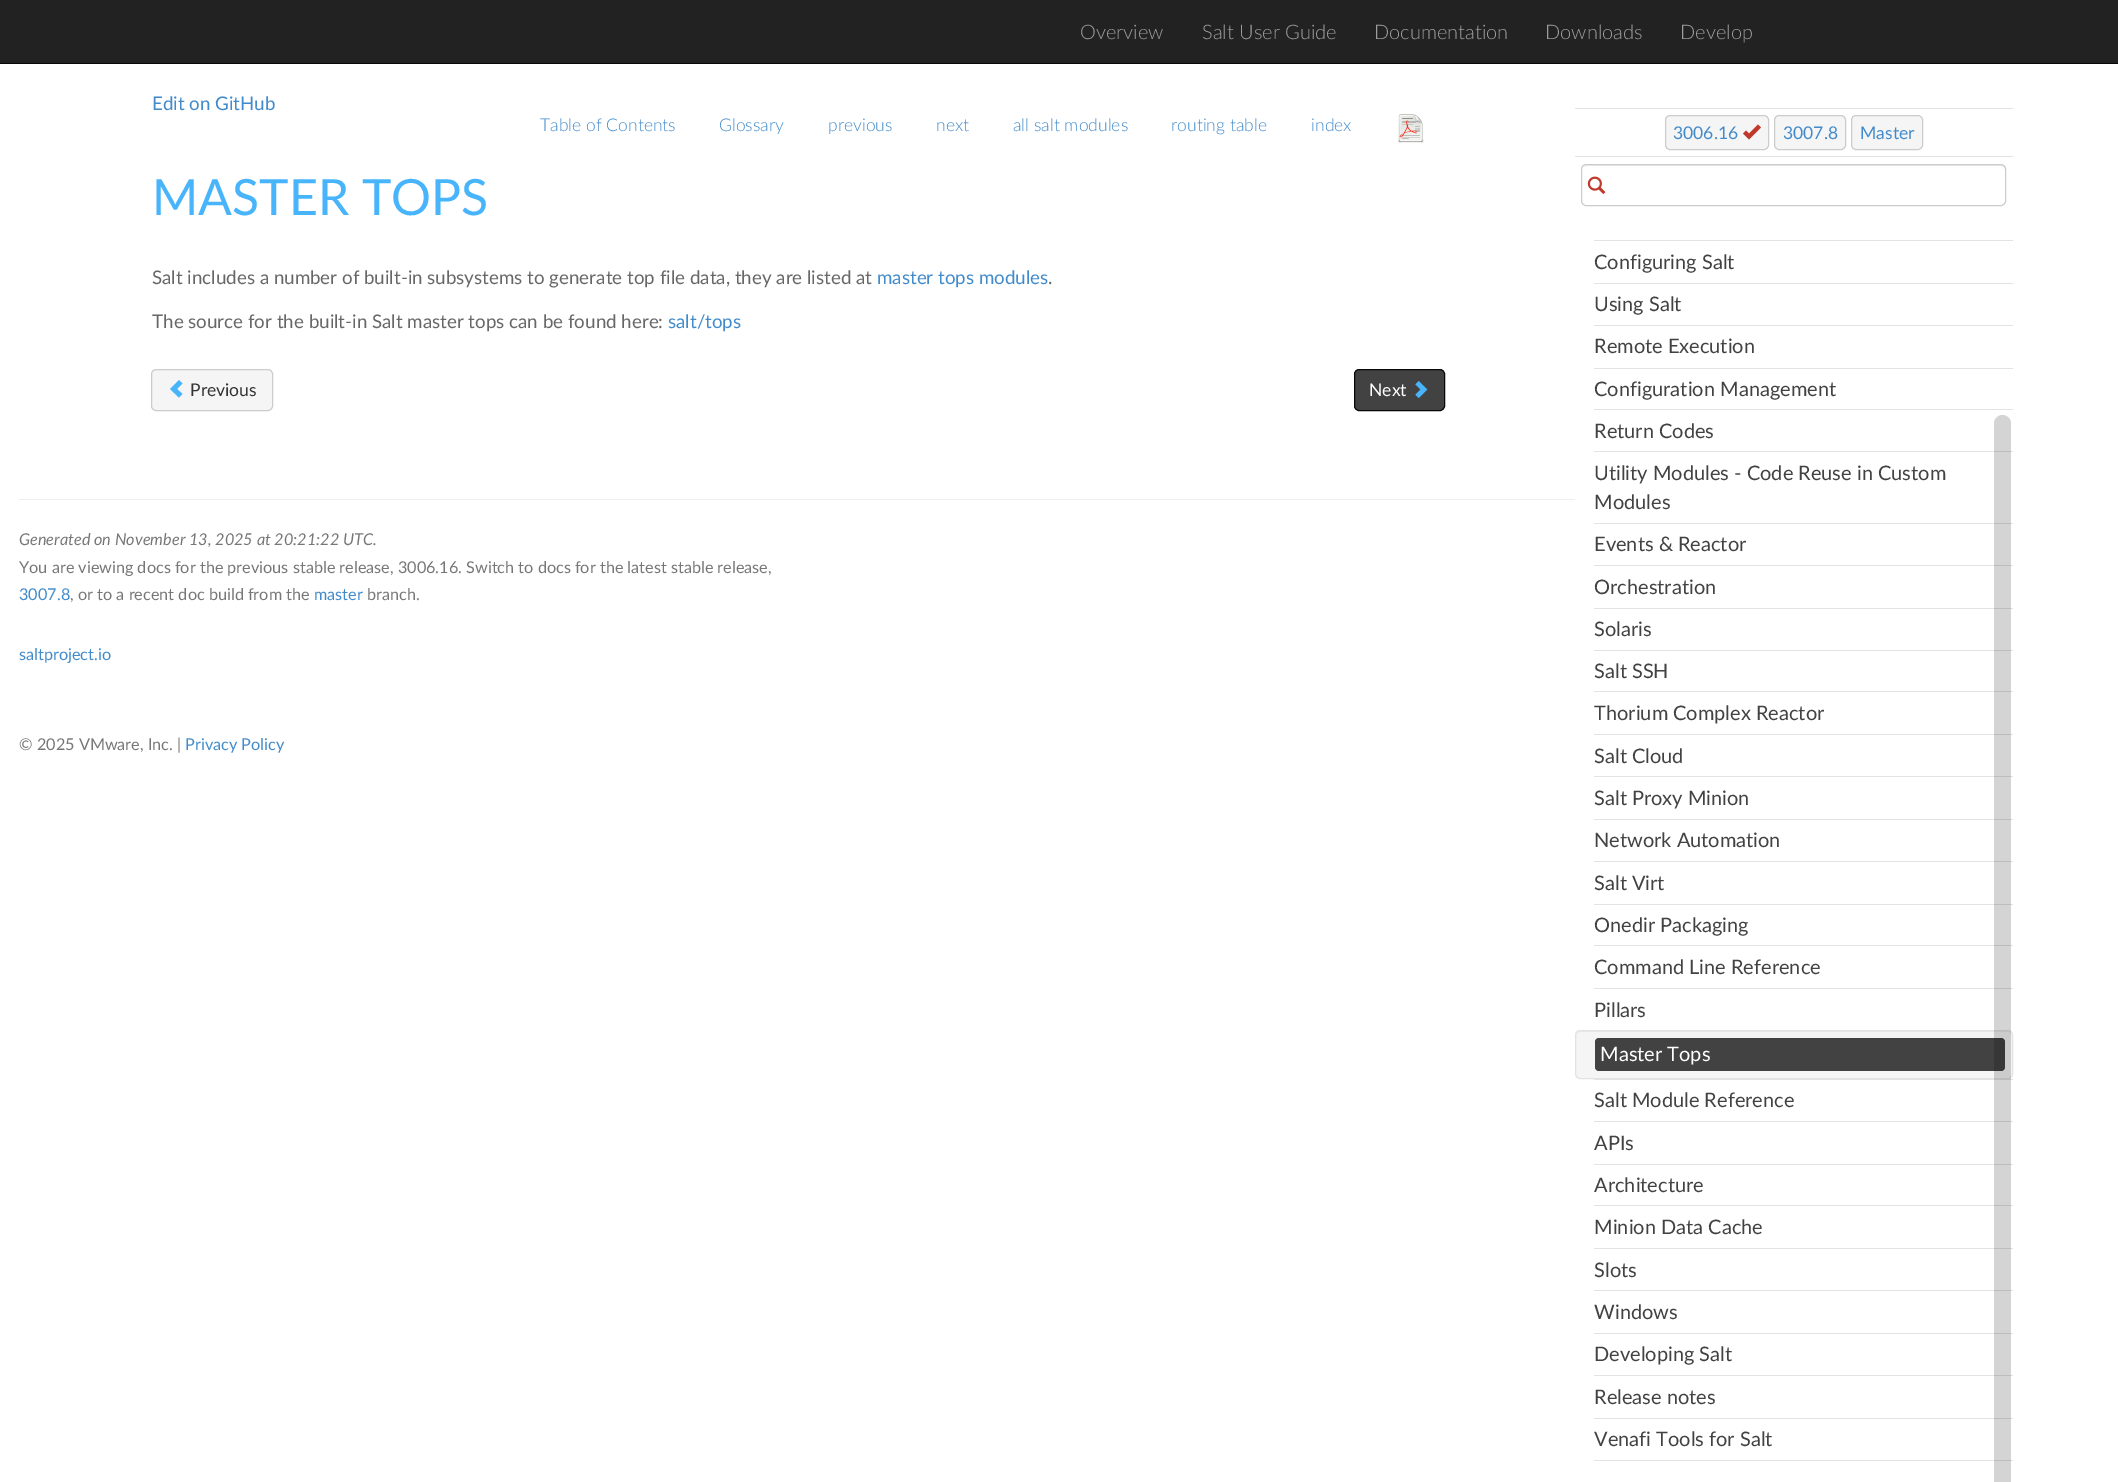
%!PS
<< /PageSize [2118 1482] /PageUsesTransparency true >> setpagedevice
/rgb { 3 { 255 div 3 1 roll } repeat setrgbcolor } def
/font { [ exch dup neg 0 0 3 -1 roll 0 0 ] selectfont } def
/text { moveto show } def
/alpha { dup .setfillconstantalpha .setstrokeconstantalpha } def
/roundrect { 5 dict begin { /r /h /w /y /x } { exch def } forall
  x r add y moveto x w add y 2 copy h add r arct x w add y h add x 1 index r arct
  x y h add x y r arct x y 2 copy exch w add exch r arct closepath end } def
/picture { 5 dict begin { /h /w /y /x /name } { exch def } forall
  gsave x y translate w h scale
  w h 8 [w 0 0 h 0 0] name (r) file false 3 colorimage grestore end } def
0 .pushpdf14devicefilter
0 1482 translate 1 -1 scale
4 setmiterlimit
255 255 255 rgb
0 0 2118 1482 rectfill
34 34 34 rgb
0 0 2118 63 rectfill
8 8 8 rgb
0 63 2118 1 rectfill
(img_01.rgb) 1398 114 26 29 picture
245 245 245 rgb
151.5 369.5 121 41 4.5 roundrect gsave fill grestore
204 204 204 rgb
stroke
72 180 251 rgb
170 389 moveto 9 8.5 rlineto 3.5 -3.5 rlineto -5.5 -5 rlineto 5.5 -5.5 rlineto -3.5 -3.5 rlineto closepath fill
66 66 66 rgb
1354.5 369.5 90 41 4.5 roundrect gsave fill grestore
8 8 8 rgb
stroke
(img_02.rgb) 1415 381 13 18 picture
238 238 238 rgb
19 499 1560 1 rectfill
255 255 255 rgb
1575 499 4 1 rectfill
227 227 227 rgb
1575 108 438 1 rectfill
1575 156 438 1 rectfill
245 245 245 rgb
1665.5 115.5 103 34 4.5 roundrect gsave fill grestore
204 204 204 rgb
stroke
192 57 43 rgb
1743 133.5 moveto 6 6 rlineto 12 -12 rlineto -3 -3 rlineto -9 9 rlineto -3 -3 rlineto closepath fill
245 245 245 rgb
1774.5 115.5 71 34 4.5 roundrect gsave fill grestore
204 204 204 rgb
stroke
245 245 245 rgb
1851.5 115.5 71 34 4.5 roundrect gsave fill grestore
204 204 204 rgb
stroke
236 236 236 rgb
1586 166 moveto 415 0 rlineto 2 0 4 2 4 4 rcurveto 0 -1 rlineto 0 -2 -2 -4 -4 -4 rcurveto -414 0 rlineto -1 0 -3 1 -3 2 rcurveto closepath fill
204 204 204 rgb
1581.5 164.5 424 41 4.5 roundrect stroke
(img_03.rgb) 1587 176 19 18 picture
227 227 227 rgb
1594 240 419 1 rectfill
1594 283 419 1 rectfill
1594 325 419 1 rectfill
1594 368 419 1 rectfill
1594 409 419 1 rectfill
1594 451 419 1 rectfill
1594 523 419 1 rectfill
1594 565 419 1 rectfill
1594 608 419 1 rectfill
1594 650 419 1 rectfill
1594 691 419 1 rectfill
1594 734 419 1 rectfill
1594 776 419 1 rectfill
1594 819 419 1 rectfill
1594 861 419 1 rectfill
1594 904 419 1 rectfill
1594 945 419 1 rectfill
1594 988 419 1 rectfill
245 245 245 rgb
1575 1030 438 49 5 roundrect fill
233 233 233 rgb
1580 1032 moveto 428 0 rlineto 2 0 3 2 3 4 rcurveto 0 -3 -1 -5 -4 -5 rcurveto -427 0 rlineto -2 1 rlineto -1 1 rlineto -1 3 rlineto 0 -2 2 -4 4 -4 rcurveto closepath fill
227 227 227 rgb
1575.5 1030.5 437 48 4.5 roundrect stroke
66 66 66 rgb
1595 1038 410 33 4 roundrect fill
227 227 227 rgb
1594 1079 419 1 rectfill
1594 1121 419 1 rectfill
1594 1164 419 1 rectfill
1594 1205 419 1 rectfill
1594 1248 419 1 rectfill
1594 1290 419 1 rectfill
1594 1333 419 1 rectfill
1594 1375 419 1 rectfill
1594 1418 419 1 rectfill
1594 1460 419 1 rectfill
0.17 alpha
0 0 0 rgb
2002.5 415 moveto 4.5 0 8.5 4 8.5 8.5 rcurveto 0 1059.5 rlineto -17 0 rlineto 0 -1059.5 rlineto 0 -4.5 4 -8.5 8.5 -8.5 rcurveto closepath fill
/Lato-Light 20 font
1 alpha
157 157 157 rgb
(Overview) 1080 39 text
(Salt User Guide) 1202 39 text
(Documentation) 1374 39 text
(Downloads) 1545 39 text
(Develop) 1680 39 text
/Lato-Regular 18.75 font
66 139 202 rgb
(Edit on GitHub) 152 110 text
/Lato-Light 17.5 font
(Table of Contents) 540 131 text
(Glossary) 719 131 text
(previous) 828 131 text
(next) 936 131 text
(all salt modules) 1013 131 text
(routing table) 1171 131 text
(index) 1311 131 text
/Lato-Regular 50 font
72 180 251 rgb
(MASTER TOPS) 152 215 text
/Lato-Regular 18.75 font
103 103 103 rgb
(Salt includes a number of built-in subsystems to generate top file data, they are listed at) 152 284 text
66 139 202 rgb
(master tops modules) 877 284 text
103 103 103 rgb
(.) 1048 284 text
(The source for the built-in Salt master tops can be found here:) 152 328 text
66 139 202 rgb
(salt/tops) 668 328 text
/Lato-Regular 17.5 font
51 51 51 rgb
(Previous) 190 396 text
255 255 255 rgb
(Next) 1369 396 text
/Lato-Italic 16.25 font
119 119 119 rgb
(Generated on November 13, 2025 at 20:21:22 UTC.) 19 545 text
/Lato-Regular 16.25 font
(You are viewing docs for the previous stable release, 3006.16. Switch to docs for the latest stable release,) 19 573 text
66 139 202 rgb
(3007.8) 19 600 text
119 119 119 rgb
(, or to a recent doc build from the) 70 600 text
66 139 202 rgb
(master) 314 600 text
119 119 119 rgb
(branch.) 367 600 text
66 139 202 rgb
(saltproject.io) 19 660 text
119 119 119 rgb
(© 2025 VMware, Inc. |) 19 750 text
66 139 202 rgb
(Privacy Policy) 185 750 text
/Lato-Regular 17.5 font
(3006.16) 1673 139 text
(3007.8) 1783 139 text
(Master) 1860 139 text
/Lato-Regular 20 font
66 66 66 rgb
(Configuring Salt) 1594 269 text
(Using Salt) 1594 311 text
(Remote Execution) 1594 353 text
(Configuration Management) 1594 396 text
(Return Codes) 1594 438 text
(Utility Modules - Code Reuse in Custom) 1594 480 text
(Modules) 1594 509 text
(Events & Reactor) 1594 551 text
(Orchestration) 1594 594 text
(Solaris) 1594 636 text
(Salt SSH) 1594 678 text
(Thorium Complex Reactor) 1594 720 text
(Salt Cloud) 1594 763 text
(Salt Proxy Minion) 1594 805 text
(Network Automation) 1594 847 text
(Salt Virt) 1594 890 text
(Onedir Packaging) 1594 932 text
(Command Line Reference) 1594 974 text
(Pillars) 1594 1017 text
255 255 255 rgb
(Master Tops) 1600 1061 text
66 66 66 rgb
(Salt Module Reference) 1594 1107 text
(APIs) 1594 1150 text
(Architecture) 1594 1192 text
(Minion Data Cache) 1594 1234 text
(Slots) 1594 1277 text
(Windows) 1594 1319 text
(Developing Salt) 1594 1361 text
(Release notes) 1594 1404 text
(Venafi Tools for Salt) 1594 1446 text
.poppdf14devicefilter showpage
